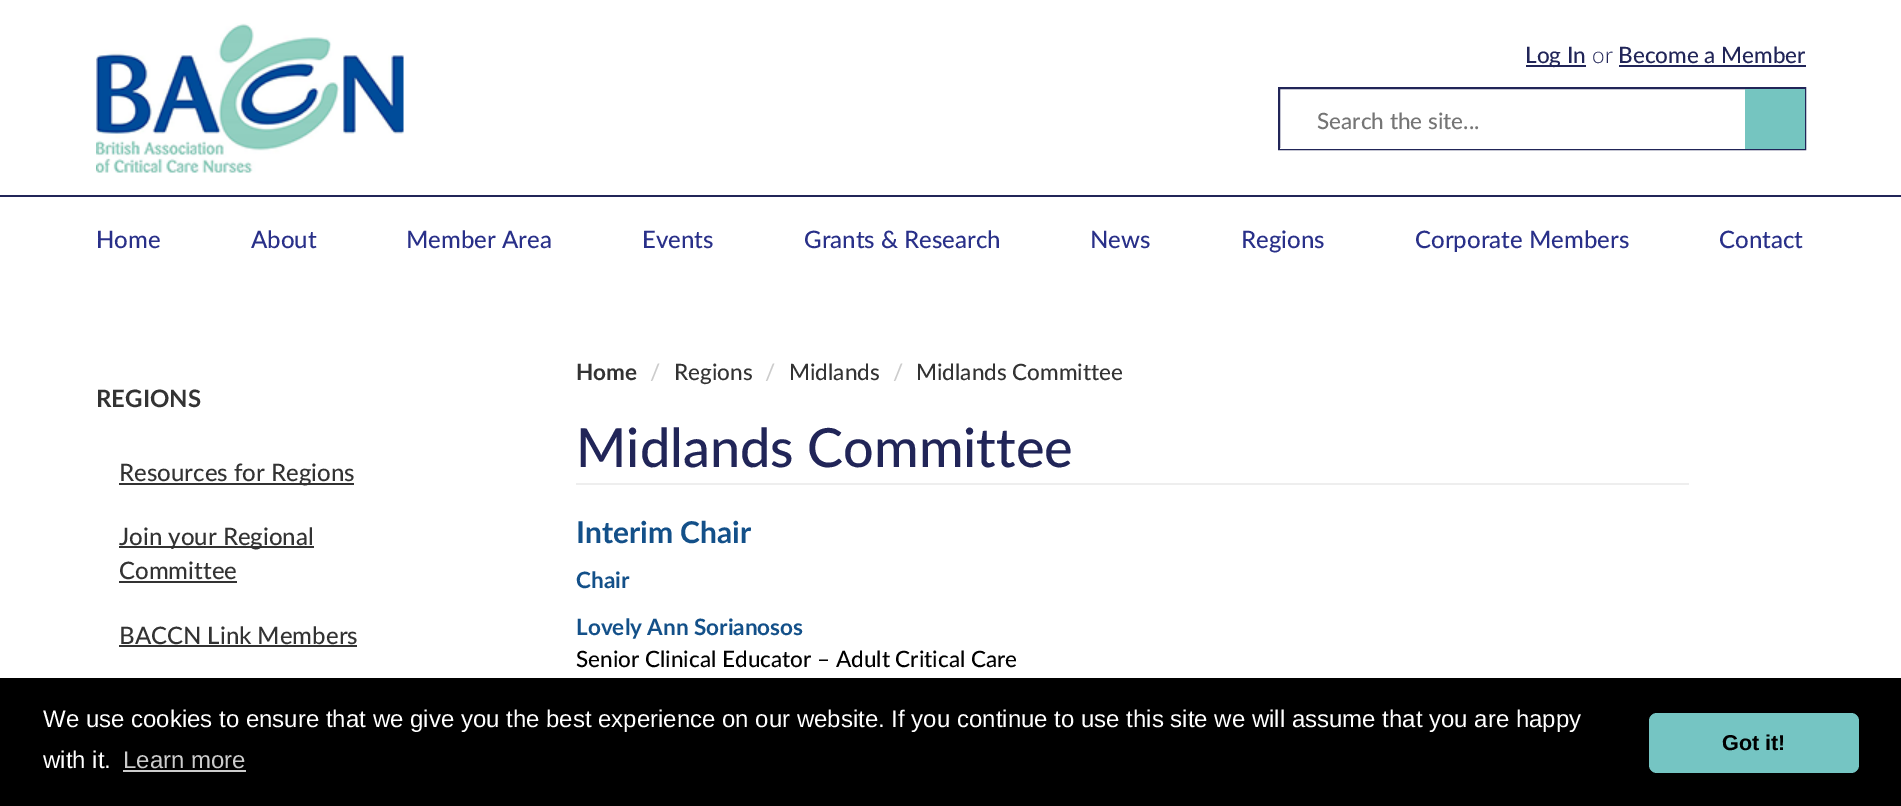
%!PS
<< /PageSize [1901 806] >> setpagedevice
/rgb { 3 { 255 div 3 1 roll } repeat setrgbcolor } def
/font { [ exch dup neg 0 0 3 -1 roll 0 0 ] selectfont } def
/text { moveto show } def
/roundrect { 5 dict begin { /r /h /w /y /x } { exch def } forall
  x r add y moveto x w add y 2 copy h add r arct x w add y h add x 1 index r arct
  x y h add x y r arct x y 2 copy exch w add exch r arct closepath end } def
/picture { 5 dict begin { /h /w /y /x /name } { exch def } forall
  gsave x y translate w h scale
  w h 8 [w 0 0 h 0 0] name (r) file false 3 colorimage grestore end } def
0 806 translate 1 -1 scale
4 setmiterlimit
255 255 255 rgb
0 0 1901 806 rectfill
(img_01.rgb) 96 23 308 150 picture
33 37 88 rgb
1526 65 60 2 rectfill
1619 65 187 2 rectfill
2 setlinewidth
1279 88 526 61 rectstroke
255 255 255 rgb
1280 148 465 1 rectfill
117 197 192 rgb
1745 89 60 60 rectfill
33 37 88 rgb
0 195 1901 2 rectfill
51 51 51 rgb
119 483 235 2 rectfill
119 546 195 2 rectfill
119 581 118 2 rectfill
119 645 238 2 rectfill
238 238 238 rgb
576 483 1113 2 rectfill
0 0 0 rgb
0 678 1901 128 rectfill
204 204 204 rgb
123 770 123 2 rectfill
117 197 195 rgb
1649 713 210 60 8 roundrect fill
/Lato-Medium 22.5 font
33 37 88 rgb
(Log In) 1525 63 text
/Lato-Light 22.5 font
(or) 1592 63 text
/Lato-Medium 22.5 font
(Become a Member) 1618 63 text
117 117 117 rgb
(Search the site...) 1317 129 text
/Lato-Medium 24 font
41 48 137 rgb
(Home) 96 248 text
(About) 251 248 text
(Member Area) 406 248 text
(Events) 642 248 text
(Grants & Research) 804 248 text
(News) 1090 248 text
(Regions) 1241 248 text
(Corporate Members) 1415 248 text
(Contact) 1719 248 text
/Lato-Bold 24 font
51 51 51 rgb
(REGIONS) 96 407 text
/Lato-Medium 24 font
(Resources for Regions) 119 481 text
(Join your Regional) 119 545 text
(Committee) 119 579 text
(BACCN Link Members) 119 644 text
/Lato-Bold 22.5 font
(Home) 576 380 text
/Lato-Medium 22.5 font
204 204 204 rgb
(/) 650 380 text
51 51 51 rgb
(Regions) 674 380 text
204 204 204 rgb
(/) 765 380 text
51 51 51 rgb
(Midlands) 789 380 text
204 204 204 rgb
(/) 893 380 text
51 51 51 rgb
(Midlands Committee) 916 380 text
/Lato-Medium 54 font
33 37 88 rgb
(Midlands Committee) 576 467 text
/Lato-Bold 30 font
19 80 137 rgb
(Interim Chair) 576 543 text
/Lato-Bold 22.5 font
(Chair) 576 588 text
(Lovely Ann Sorianosos) 576 635 text
/Lato-Medium 22.5 font
0 0 0 rgb
(Senior Clinical Educator – Adult Critical Care) 576 667 text
/LiberationSans-Regular 24 font
255 255 255 rgb
(We use cookies to ensure that we give you the best experience on our website. If you continue to use this site we will assume that you are happy) 43 727 text
(with it.) 43 768 text
204 204 204 rgb
(Learn more) 123 768 text
/LiberationSans-Bold 21.5 font
0 0 0 rgb
(Got it!) 1722 750 text
showpage
